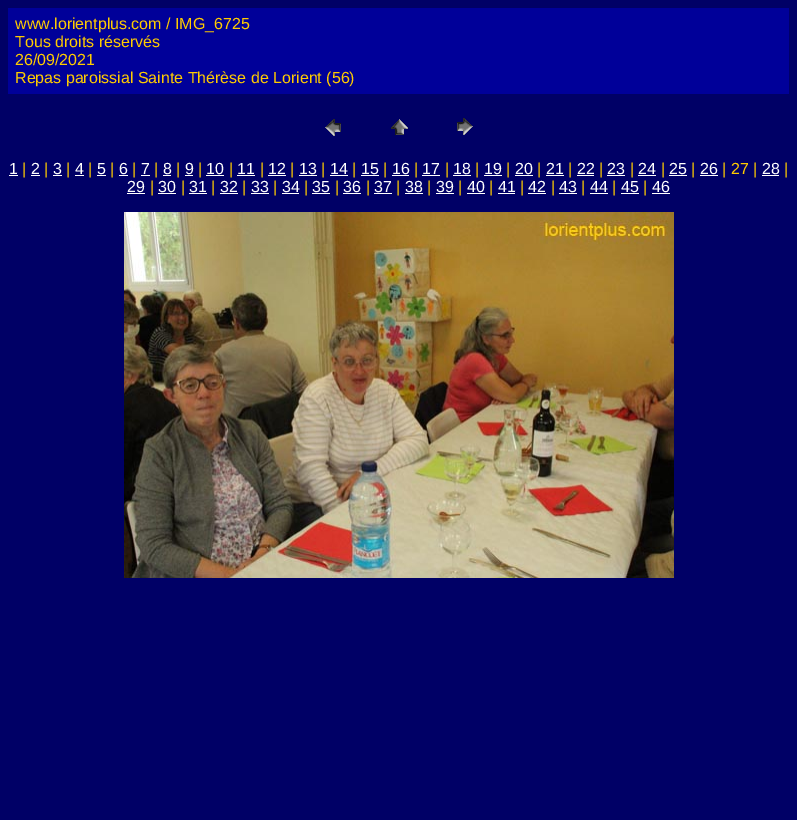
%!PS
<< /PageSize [797 820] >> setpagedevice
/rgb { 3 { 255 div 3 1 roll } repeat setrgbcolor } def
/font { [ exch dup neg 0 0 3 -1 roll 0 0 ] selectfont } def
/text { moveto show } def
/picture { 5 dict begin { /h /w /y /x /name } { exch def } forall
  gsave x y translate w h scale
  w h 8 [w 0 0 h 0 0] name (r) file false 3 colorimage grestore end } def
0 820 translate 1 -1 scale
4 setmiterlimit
0 0 102 rgb
0 0 797 820 rectfill
0 0 153 rgb
8 8 781 86 rectfill
(img_01.rgb) 325 119 16 17 picture
(img_02.rgb) 391 119 17 16 picture
(img_03.rgb) 457 118 16 17 picture
255 255 255 rgb
9 175 9 1 rectfill
31 175 9 1 rectfill
53 175 9 1 rectfill
75 175 9 1 rectfill
97 175 9 1 rectfill
119 175 9 1 rectfill
141 175 9 1 rectfill
163 175 8 1 rectfill
185 175 8 1 rectfill
206 175 18 1 rectfill
237 175 18 1 rectfill
268 175 18 1 rectfill
299 175 18 1 rectfill
330 175 18 1 rectfill
361 175 18 1 rectfill
392 175 17 1 rectfill
422 175 18 1 rectfill
453 175 18 1 rectfill
484 175 18 1 rectfill
515 175 18 1 rectfill
546 175 18 1 rectfill
577 175 17 1 rectfill
607 175 18 1 rectfill
638 175 18 1 rectfill
669 175 18 1 rectfill
700 175 18 1 rectfill
762 175 17 1 rectfill
127 193 18 1 rectfill
158 193 18 1 rectfill
189 193 18 1 rectfill
220 193 18 1 rectfill
251 193 18 1 rectfill
282 193 17 1 rectfill
312 193 18 1 rectfill
343 193 18 1 rectfill
374 193 18 1 rectfill
405 193 18 1 rectfill
436 193 18 1 rectfill
467 193 18 1 rectfill
498 193 17 1 rectfill
528 193 18 1 rectfill
559 193 18 1 rectfill
590 193 18 1 rectfill
621 193 18 1 rectfill
652 193 18 1 rectfill
(img_04.rgb) 124 212 550 366 picture
/LiberationSans-Regular 16 font
255 204 0 rgb
(www.lorientplus.com / IMG_6725) 15 29 text
(Tous droits réservés) 15 47 text
(26/09/2021) 15 65 text
(Repas paroissial Sainte Thérèse de Lorient \(56\)) 15 83 text
255 255 255 rgb
(1) 9 174 text
255 204 0 rgb
(|) 22 174 text
255 255 255 rgb
(2) 31 174 text
255 204 0 rgb
(|) 44 174 text
255 255 255 rgb
(3) 53 174 text
255 204 0 rgb
(|) 66 174 text
255 255 255 rgb
(4) 75 174 text
255 204 0 rgb
(|) 88 174 text
255 255 255 rgb
(5) 97 174 text
255 204 0 rgb
(|) 110 174 text
255 255 255 rgb
(6) 119 174 text
255 204 0 rgb
(|) 132 174 text
255 255 255 rgb
(7) 141 174 text
255 204 0 rgb
(|) 154 174 text
255 255 255 rgb
(8) 163 174 text
255 204 0 rgb
(|) 176 174 text
255 255 255 rgb
(9) 185 174 text
255 204 0 rgb
(|) 198 174 text
255 255 255 rgb
(10) 206 174 text
255 204 0 rgb
(|) 229 174 text
255 255 255 rgb
(11) 237 174 text
255 204 0 rgb
(|) 260 174 text
255 255 255 rgb
(12) 268 174 text
255 204 0 rgb
(|) 290 174 text
255 255 255 rgb
(13) 299 174 text
255 204 0 rgb
(|) 321 174 text
255 255 255 rgb
(14) 330 174 text
255 204 0 rgb
(|) 352 174 text
255 255 255 rgb
(15) 361 174 text
255 204 0 rgb
(|) 383 174 text
255 255 255 rgb
(16) 392 174 text
255 204 0 rgb
(|) 414 174 text
255 255 255 rgb
(17) 422 174 text
255 204 0 rgb
(|) 445 174 text
255 255 255 rgb
(18) 453 174 text
255 204 0 rgb
(|) 475 174 text
255 255 255 rgb
(19) 484 174 text
255 204 0 rgb
(|) 506 174 text
255 255 255 rgb
(20) 515 174 text
255 204 0 rgb
(|) 537 174 text
255 255 255 rgb
(21) 546 174 text
255 204 0 rgb
(|) 568 174 text
255 255 255 rgb
(22) 577 174 text
255 204 0 rgb
(|) 599 174 text
255 255 255 rgb
(23) 607 174 text
255 204 0 rgb
(|) 630 174 text
255 255 255 rgb
(24) 638 174 text
255 204 0 rgb
(|) 661 174 text
255 255 255 rgb
(25) 669 174 text
255 204 0 rgb
(|) 691 174 text
255 255 255 rgb
(26) 700 174 text
255 204 0 rgb
(| 27 |) 722 174 text
255 255 255 rgb
(28) 762 174 text
255 204 0 rgb
(|) 784 174 text
255 255 255 rgb
(29) 127 192 text
255 204 0 rgb
(|) 150 192 text
255 255 255 rgb
(30) 158 192 text
255 204 0 rgb
(|) 181 192 text
255 255 255 rgb
(31) 189 192 text
255 204 0 rgb
(|) 211 192 text
255 255 255 rgb
(32) 220 192 text
255 204 0 rgb
(|) 242 192 text
255 255 255 rgb
(33) 251 192 text
255 204 0 rgb
(|) 273 192 text
255 255 255 rgb
(34) 282 192 text
255 204 0 rgb
(|) 304 192 text
255 255 255 rgb
(35) 312 192 text
255 204 0 rgb
(|) 335 192 text
255 255 255 rgb
(36) 343 192 text
255 204 0 rgb
(|) 366 192 text
255 255 255 rgb
(37) 374 192 text
255 204 0 rgb
(|) 396 192 text
255 255 255 rgb
(38) 405 192 text
255 204 0 rgb
(|) 427 192 text
255 255 255 rgb
(39) 436 192 text
255 204 0 rgb
(|) 458 192 text
255 255 255 rgb
(40) 467 192 text
255 204 0 rgb
(|) 489 192 text
255 255 255 rgb
(41) 498 192 text
255 204 0 rgb
(|) 520 192 text
255 255 255 rgb
(42) 528 192 text
255 204 0 rgb
(|) 551 192 text
255 255 255 rgb
(43) 559 192 text
255 204 0 rgb
(|) 581 192 text
255 255 255 rgb
(44) 590 192 text
255 204 0 rgb
(|) 612 192 text
255 255 255 rgb
(45) 621 192 text
255 204 0 rgb
(|) 643 192 text
255 255 255 rgb
(46) 652 192 text
showpage
